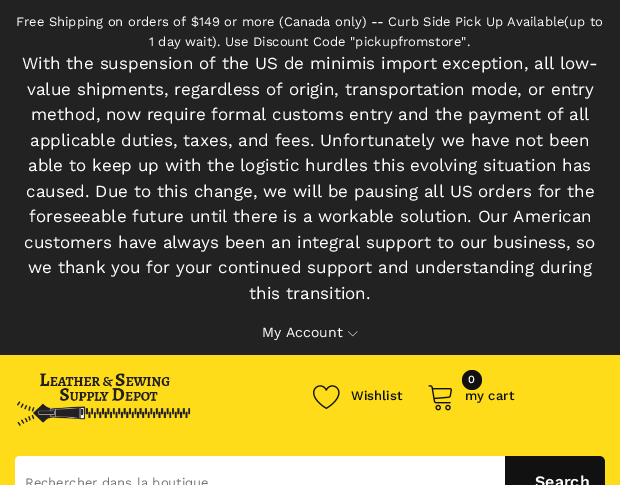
%!PS
<< /PageSize [620 485] >> setpagedevice
/rgb { 3 { 255 div 3 1 roll } repeat setrgbcolor } def
/font { [ exch dup neg 0 0 3 -1 roll 0 0 ] selectfont } def
/text { moveto show } def
/circle { newpath 0 360 arc closepath } def
/picture { 5 dict begin { /h /w /y /x /name } { exch def } forall
  gsave x y translate w h scale
  w h 8 [w 0 0 h 0 0] name (r) file false 3 colorimage grestore end } def
0 485 translate 1 -1 scale
4 setmiterlimit
34 34 34 rgb
0 0 620 485 rectfill
(img_01.rgb) 348 331 10 6 picture
254 220 25 rgb
0 355 620 130 rectfill
(img_02.rgb) 17 373 174 53 picture
(img_03.rgb) 313 385 27 24 picture
17 17 17 rgb
472 380 10 circle fill
(img_04.rgb) 428 385 24 26 picture
255 255 255 rgb
20 456 moveto 485 0 rlineto 0 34 rlineto -485 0 rlineto -3 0 -5 -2 -5 -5 rcurveto 0 -24 rlineto 0 -3 2 -5 5 -5 rcurveto closepath fill
17 17 17 rgb
505 456 moveto 94 0 rlineto 3.5 0 6 2.5 6 6 rcurveto 0 23 rlineto 0 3.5 -2.5 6 -6 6 rcurveto -94 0 rlineto closepath fill
/WorkSans-Regular 13 font
255 255 255 rgb
(Free Shipping on orders of $149 or more \(Canada only\) -- Curb Side Pick Up Available\(up to) 16 26 text
(1 day wait\). Use Discount Code "pickupfromstore".) 149 46 text
/WorkSans-Regular 17 font
(With the suspension of the US de minimis import exception, all low-) 22 69 text
(value shipments, regardless of origin, transportation mode, or entry) 27 95 text
(method, now require formal customs entry and the payment of all) 31 120 text
(applicable duties, taxes, and fees. Unfortunately we have not been) 30 146 text
(able to keep up with the logistic hurdles this evolving situation has) 28 171 text
(caused. Due to this change, we will be pausing all US orders for the) 26 197 text
(foreseeable future until there is a workable solution. Our American) 29 222 text
(customers have always been an integral support to our business, so) 24 248 text
(we thank you for your continued support and understanding during) 28 273 text
(this transition.) 249 299 text
/WorkSans-Regular 14 font
(My Account) 262 337 text
/WorkSans-Medium 13 font
17 17 17 rgb
(Wishlist) 351 400 text
/WorkSans-Medium 11 font
255 255 255 rgb
(0) 468 383 text
/WorkSans-Medium 13 font
17 17 17 rgb
(my cart) 465 400 text
/WorkSans-Regular 13 font
117 117 117 rgb
(Rechercher dans la boutique) 25 487 text
/WorkSans-SemiBold 16 font
255 255 255 rgb
(Search) 535 487 text
showpage
